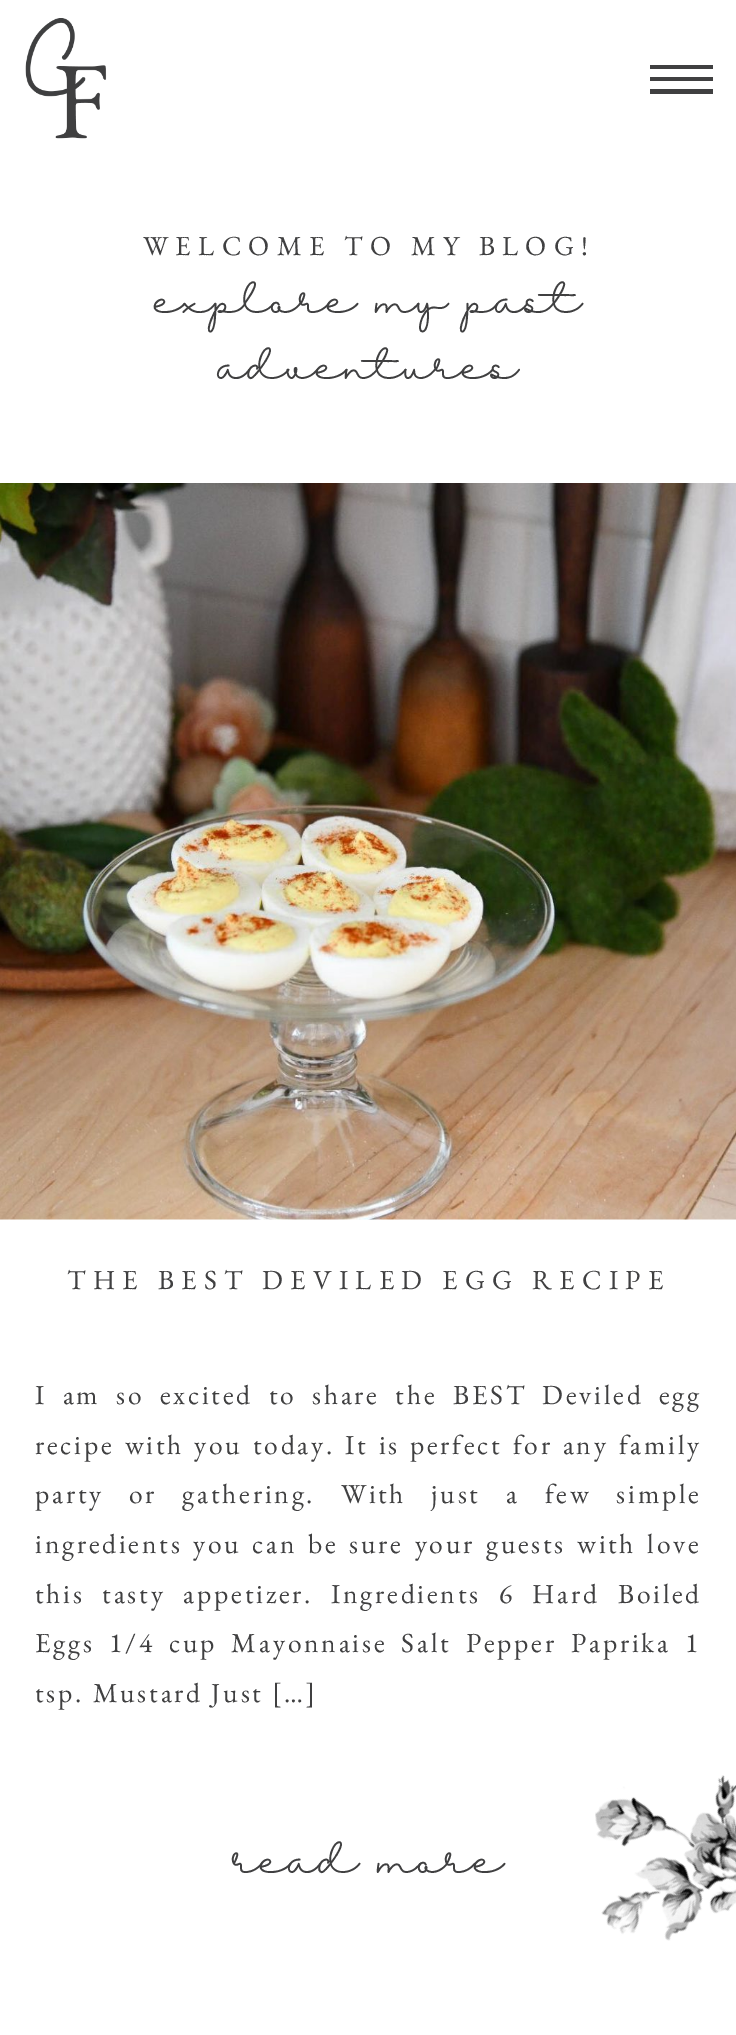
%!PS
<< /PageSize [736 2035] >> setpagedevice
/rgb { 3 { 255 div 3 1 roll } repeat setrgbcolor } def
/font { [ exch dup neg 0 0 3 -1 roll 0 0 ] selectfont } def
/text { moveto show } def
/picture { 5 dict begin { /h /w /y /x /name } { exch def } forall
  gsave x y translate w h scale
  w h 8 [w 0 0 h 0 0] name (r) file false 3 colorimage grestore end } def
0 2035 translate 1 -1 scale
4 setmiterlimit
255 255 255 rgb
0 0 736 2035 rectfill
(img_01.rgb) 25 18 82 121 picture
gsave
650 42 64 75 rectclip
64 64 65 rgb
649 65 moveto 64 0 rlineto 0 4 rlineto -64 0 rlineto closepath 649 77 moveto 64 0 rlineto 0 4 rlineto -64 0 rlineto closepath 649 89 moveto 64 0 rlineto 0 5 rlineto -64 0 rlineto closepath fill
grestore
(img_02.rgb) 0 483 736 737 picture
(img_03.rgb) 595 1775 141 166 picture
/EBGaramond-Regular 27.6 font
64 64 65 rgb
143 255 moveto 7.2 0 (WELCOME TO MY BLOG!) ashow
/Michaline-Regular 55.25 font
(explore my past) 156 313 text
(adventures) 220 379 text
/EBGaramond-Regular 27.6 font
67 1289 moveto 7.2 0 (THE BEST DEVILED EGG RECIPE) ashow
35 1404 moveto 7.25 0 32 2.75 0 (I am so excited to share the BEST Deviled egg) awidthshow
35 1454 moveto 1.75 0 32 2.75 0 (recipe with you today. It is perfect for any family) awidthshow
35 1503 moveto 16.75 0 32 2.75 0 (party or gathering. With just a few simple) awidthshow
35 1553 moveto 2.5 0 32 2.75 0 (ingredients you can be sure your guests with love) awidthshow
35 1603 moveto 9.5 0 32 2.75 0 (this tasty appetizer. Ingredients 6 Hard Boiled) awidthshow
35 1652 moveto 6 0 32 2.75 0 (Eggs 1/4 cup Mayonnaise Salt Pepper Paprika 1) awidthshow
35 1702 moveto 2.75 0 (tsp. Mustard Just […]) ashow
/Michaline-Regular 55.25 font
(read more) 234 1873 text
showpage
